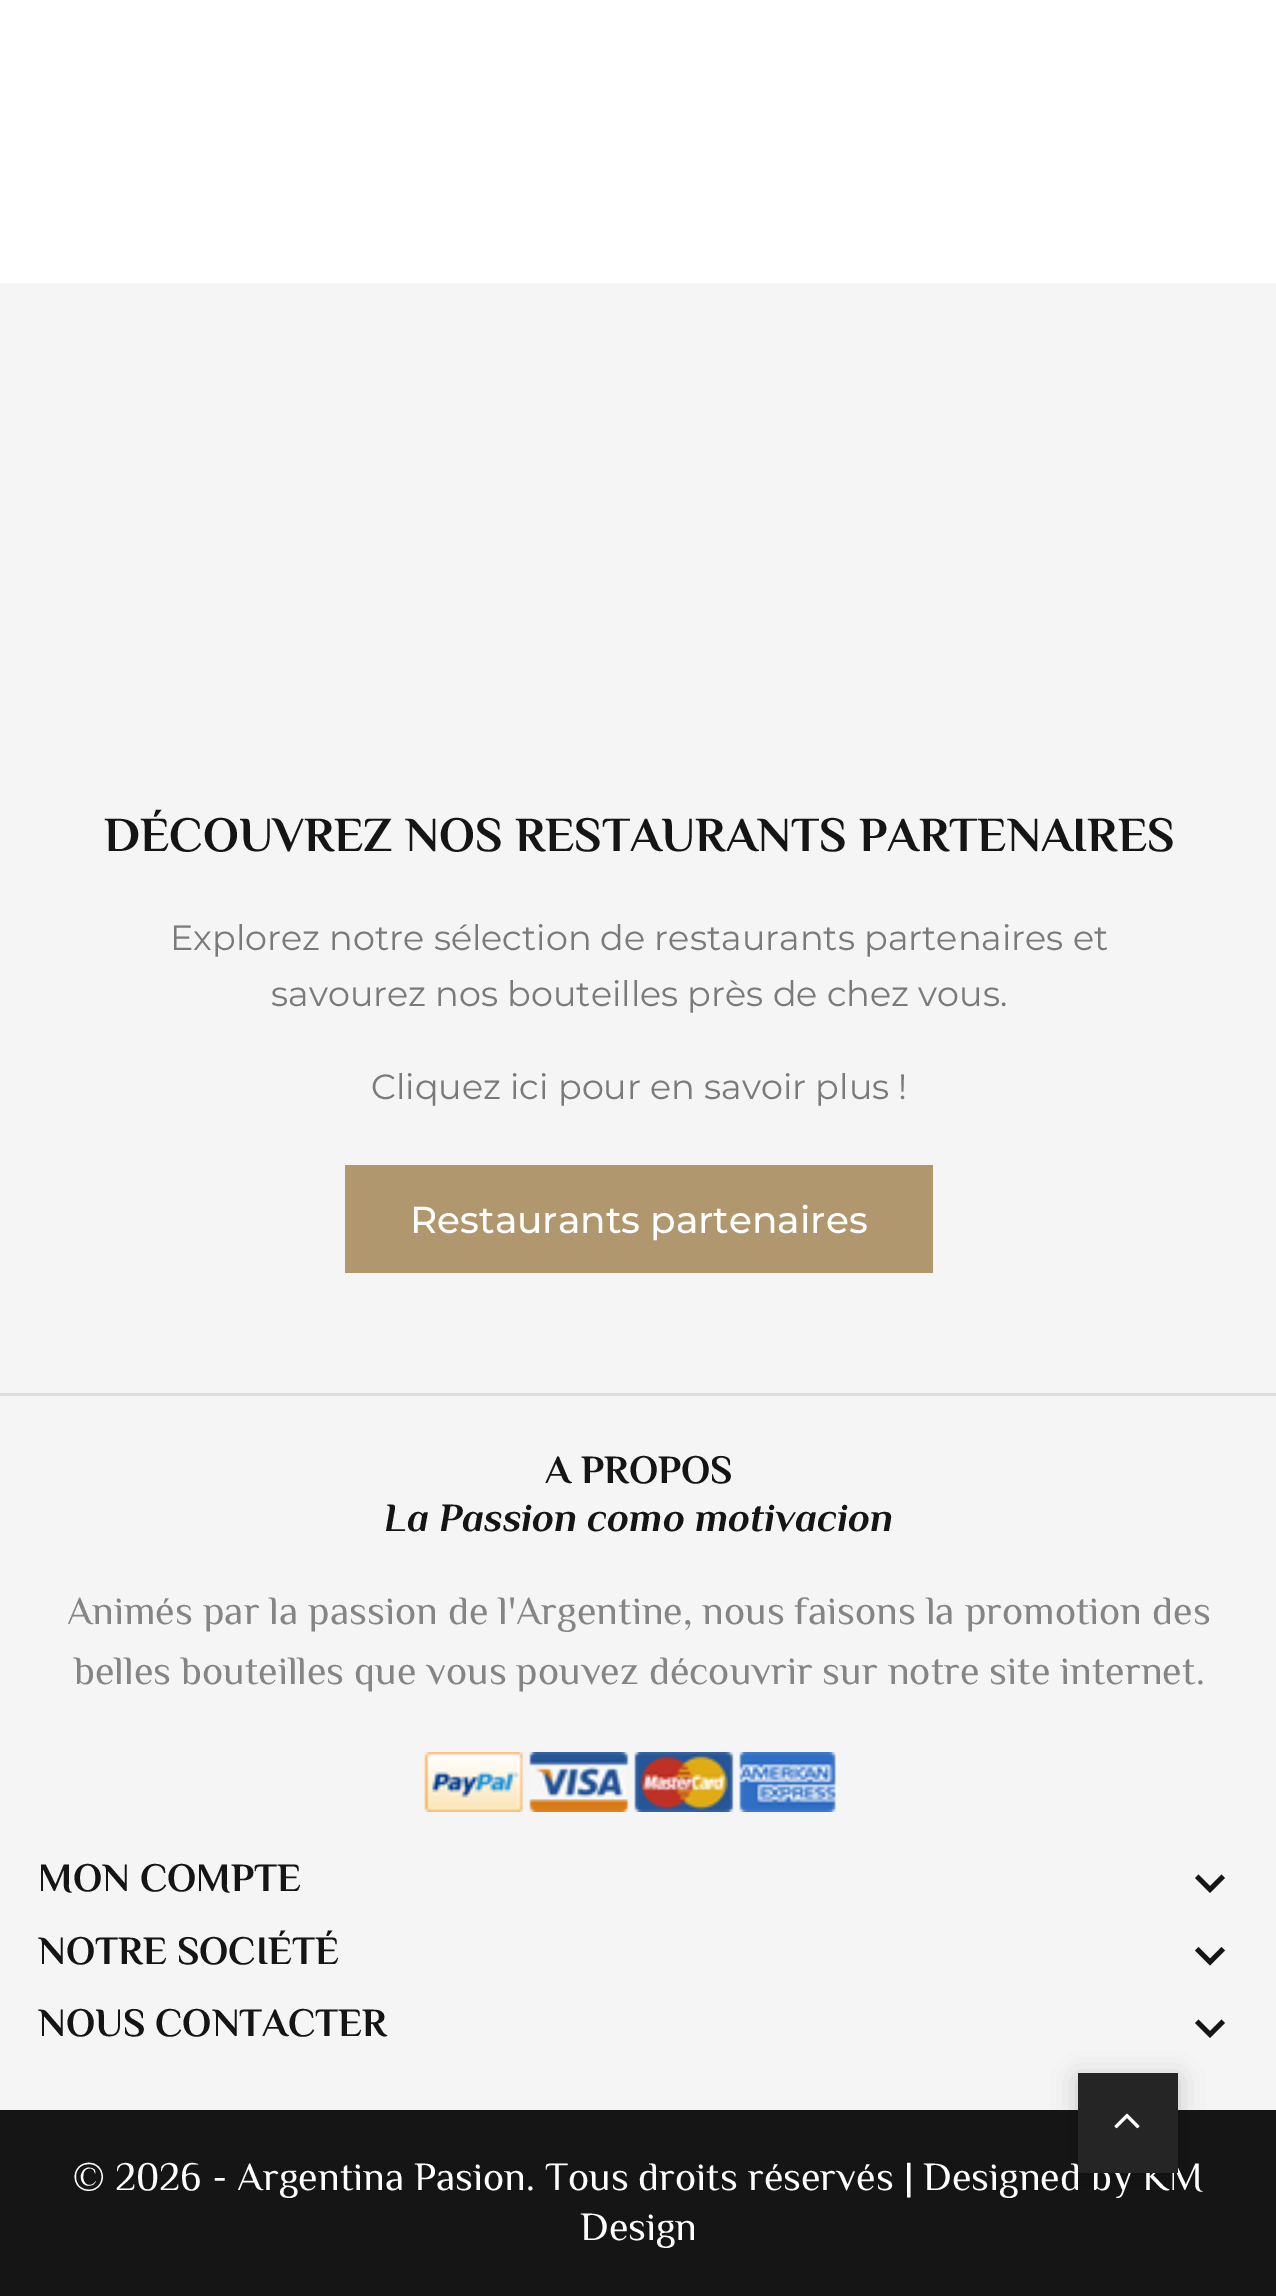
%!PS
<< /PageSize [1276 2296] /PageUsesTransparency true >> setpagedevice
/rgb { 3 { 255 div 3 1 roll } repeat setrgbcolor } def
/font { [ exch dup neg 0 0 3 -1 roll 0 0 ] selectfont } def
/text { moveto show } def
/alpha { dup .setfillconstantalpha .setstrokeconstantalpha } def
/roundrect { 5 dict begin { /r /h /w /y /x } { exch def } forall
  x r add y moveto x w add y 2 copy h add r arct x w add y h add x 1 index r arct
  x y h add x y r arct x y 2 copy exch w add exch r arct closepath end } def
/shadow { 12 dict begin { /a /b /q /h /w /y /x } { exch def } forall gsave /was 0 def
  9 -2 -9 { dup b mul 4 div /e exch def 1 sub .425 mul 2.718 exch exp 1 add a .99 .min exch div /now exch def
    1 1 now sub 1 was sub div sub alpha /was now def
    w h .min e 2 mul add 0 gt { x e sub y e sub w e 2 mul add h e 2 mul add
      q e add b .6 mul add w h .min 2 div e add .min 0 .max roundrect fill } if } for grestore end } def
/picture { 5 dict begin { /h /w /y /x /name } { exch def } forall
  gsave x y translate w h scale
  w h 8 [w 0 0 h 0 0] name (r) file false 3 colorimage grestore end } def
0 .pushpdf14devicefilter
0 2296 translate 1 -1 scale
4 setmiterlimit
255 255 255 rgb
0 0 1276 2296 rectfill
245 245 245 rgb
0 283 1276 1827 rectfill
176 151 109 rgb
345 1165 588 108 rectfill
221 221 221 rgb
0 1393 1276 3 rectfill
(img_01.rgb) 424 1752 412 60 picture
21 21 21 rgb
1198.5 1874.5 moveto 11.5 11.5 rlineto 11.5 -11.5 rlineto 3.5 3.5 rlineto -15 15 rlineto -15 -15 rlineto closepath fill
1198.5 1947 moveto 11.5 11.5 rlineto 11.5 -11.5 rlineto 3.5 3.5 rlineto -15 15 rlineto -15 -15 rlineto closepath fill
1198.5 2019.5 moveto 11.5 11.5 rlineto 11.5 -11.5 rlineto 3.5 3.5 rlineto -15 15 rlineto -15 -15 rlineto closepath fill
0 2110 1276 186 rectfill
0 0 0 rgb
1078 2078 100 100 0 12.5 0.2 shadow
/Philosopher-Bold 49 font
21 21 21 rgb
(DÉCOUVREZ NOS RESTAURANTS PARTENAIRES) 104 851 text
/Montserrat-Regular 35 font
122 122 122 rgb
(Explorez notre sélection de restaurants partenaires et) 170 950 text
(savourez nos bouteilles près de chez vous.) 271 1006 text
(Cliquez ici pour en savoir plus !) 371 1099 text
/Montserrat-Medium 37.5 font
255 255 255 rgb
(Restaurants partenaires) 410 1233 text
/Philosopher-Bold 40 font
21 21 21 rgb
(A PROPOS) 545 1483 text
/Philosopher-BoldItalic 40 font
(La Passion como motivacion) 384 1531 text
/Philosopher-Regular 40 font
133 133 133 rgb
(Animés par la passion de l'Argentine, nous faisons la promotion des) 67 1624 text
(belles bouteilles que vous pouvez découvrir sur notre site internet.) 74 1684 text
/Philosopher-Bold 40 font
21 21 21 rgb
(MON COMPTE) 38 1891 text
(NOTRE SOCIÉTÉ) 38 1964 text
(NOUS CONTACTER) 38 2036 text
/Philosopher-Regular 40 font
255 255 255 rgb
(© 2026 - Argentina Pasion. Tous droits réservés | Designed by KM) 73 2190 text
37 37 37 rgb
1078 2073 100 100 rectfill
(img_02.rgb) 1114 2113 26 16 picture
255 255 255 rgb
(Design) 580 2240 text
.poppdf14devicefilter showpage
